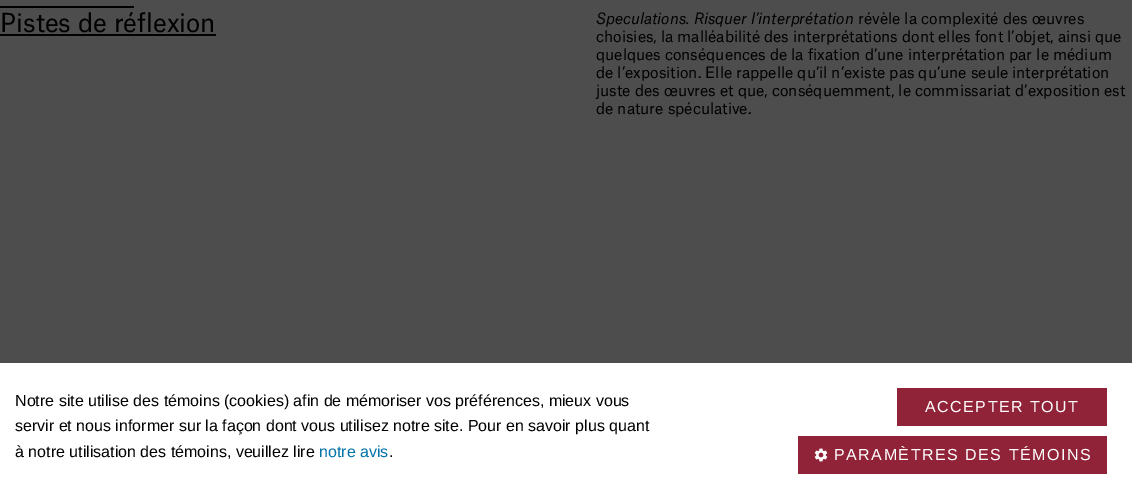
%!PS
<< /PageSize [1132 499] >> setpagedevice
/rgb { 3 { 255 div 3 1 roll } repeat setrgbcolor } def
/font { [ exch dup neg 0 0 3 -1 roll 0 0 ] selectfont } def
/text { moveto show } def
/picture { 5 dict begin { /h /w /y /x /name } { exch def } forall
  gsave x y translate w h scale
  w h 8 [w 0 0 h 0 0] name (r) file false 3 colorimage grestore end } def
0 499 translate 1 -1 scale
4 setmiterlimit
77 77 77 rgb
0 0 1132 499 rectfill
0 0 0 rgb
0 6 134 2 rectfill
0 34 216 2 rectfill
255 255 255 rgb
0 363 1132 136 rectfill
145 35 56 rgb
897 388 210 38 rectfill
798 436 309 38 rectfill
(img_01.rgb) 814 448 14 14 picture
/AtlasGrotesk-Regular 25 font
0 0 0 rgb
(Pistes de réflexion) 0 32 text
/AtlasGrotesk-Italic 15 font
(Speculations. Risquer l’interprétation) 596 24 text
/AtlasGrotesk-Regular 15 font
(révèle la complexité des œuvres) 858 24 text
(choisies, la malléabilité des interprétations dont elles font l’objet, ainsi que) 596 42 text
(quelques conséquences de la fixation d’une interprétation par le médium) 596 60 text
(de l’exposition. Elle rappelle qu’il n’existe pas qu’une seule interprétation) 596 78 text
(juste des œuvres et que, conséquemment, le commissariat d’exposition est) 596 96 text
(de nature spéculative.) 596 114 text
/LiberationSans-Regular 16 font
(Notre site utilise des témoins \(cookies\) afin de mémoriser vos préférences, mieux vous) 15 406 text
(servir et nous informer sur la façon dont vous utilisez notre site. Pour en savoir plus quant) 15 431 text
(à notre utilisation des témoins, veuillez lire) 15 457 text
0 114 168 rgb
(notre avis) 319 457 text
0 0 0 rgb
(.) 389 457 text
255 255 255 rgb
925 412 moveto 1.5 0 (ACCEPTER TOUT) ashow
834 460 moveto 1.5 0 (PARAMÈTRES DES TÉMOINS) ashow
showpage
